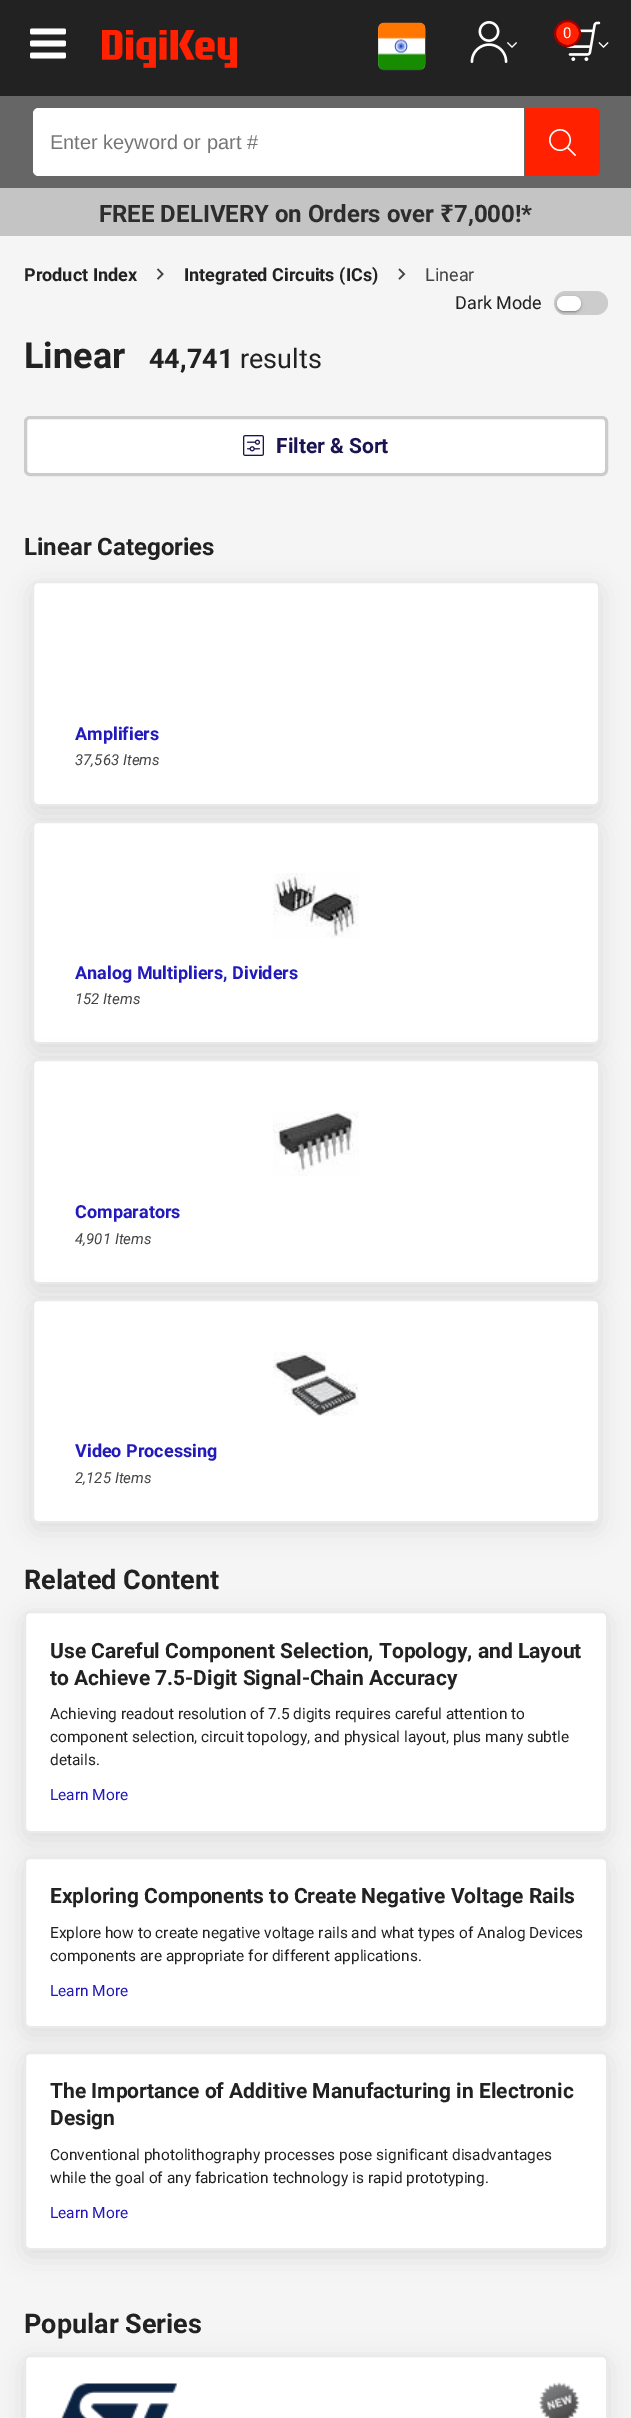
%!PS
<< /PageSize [631 2418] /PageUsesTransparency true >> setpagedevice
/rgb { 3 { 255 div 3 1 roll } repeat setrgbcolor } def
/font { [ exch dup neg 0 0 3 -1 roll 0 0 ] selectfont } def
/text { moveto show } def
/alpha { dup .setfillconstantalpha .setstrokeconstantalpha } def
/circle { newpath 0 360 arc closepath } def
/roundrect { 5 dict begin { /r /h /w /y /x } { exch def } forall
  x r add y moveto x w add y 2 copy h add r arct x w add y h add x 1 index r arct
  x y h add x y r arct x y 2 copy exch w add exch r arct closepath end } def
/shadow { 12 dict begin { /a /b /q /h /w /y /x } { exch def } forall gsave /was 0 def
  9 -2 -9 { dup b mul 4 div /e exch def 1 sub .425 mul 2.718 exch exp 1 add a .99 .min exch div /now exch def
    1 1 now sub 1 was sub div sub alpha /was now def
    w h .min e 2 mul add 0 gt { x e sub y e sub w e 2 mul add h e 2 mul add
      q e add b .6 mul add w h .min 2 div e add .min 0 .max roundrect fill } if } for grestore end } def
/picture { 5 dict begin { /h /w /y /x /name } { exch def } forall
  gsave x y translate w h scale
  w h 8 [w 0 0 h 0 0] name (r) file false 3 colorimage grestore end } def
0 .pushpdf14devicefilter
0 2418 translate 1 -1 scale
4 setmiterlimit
245 245 245 rgb
0 0 631 2418 rectfill
34 34 34 rgb
0 0 631 96 rectfill
(img_01.rgb) 30 28 36 31 picture
(img_02.rgb) 102 30 135 38 picture
(img_03.rgb) 378 22 48 49 picture
(img_04.rgb) 470 21 38 42 picture
(img_05.rgb) 507 42 10 6 picture
(img_06.rgb) 565 21 36 40 picture
255 33 0 rgb
567.5 33.5 12.5 circle gsave fill grestore
162 0 0 rgb
2 setlinewidth
stroke
(img_07.rgb) 598 42 11 6 picture
102 102 102 rgb
0 96 631 92 rectfill
255 255 255 rgb
39 108 moveto 485 0 rlineto 0 68 rlineto -485 0 rlineto -3.5 0 -6 -2.5 -6 -6 rcurveto 0 -56 rlineto 0 -3.5 2.5 -6 6 -6 rcurveto closepath fill
39 108 moveto 485 0 rlineto 0 68 rlineto -485 0 rlineto -3 0 -6 -3 -6 -6 rcurveto 0 -56 rlineto 0 -3 3 -6 6 -6 rcurveto closepath 39 110 moveto 485 0 rlineto 0 64 rlineto -485 0 rlineto -2 0 -5 -2 -5 -4 rcurveto 0 -56 rlineto 0 -2 3 -4 5 -4 rcurveto closepath eofill
255 33 0 rgb
525 108 moveto 69 0 rlineto 3.5 0 6 2.5 6 6 rcurveto 0 56 rlineto 0 3.5 -2.5 6 -6 6 rcurveto -69 0 rlineto closepath fill
(img_08.rgb) 549 129 27 27 picture
196 196 196 rgb
0 188 631 48 rectfill
(img_09.rgb) 156 268 8 12 picture
(img_10.rgb) 398 268 8 12 picture
204 204 204 rgb
554 291 54 24 12 roundrect fill
0 0 0 rgb
557 297 24 15 7.5 2 0.12 shadow
557 297 24 15 7.5 1 0.14 shadow
558 300 21 12 6 1 0.2 shadow
255 255 255 rgb
557 296 24 15 7.5 roundrect fill
25.5 417.5 581 57 4.5 roundrect gsave fill grestore
204 204 204 rgb
3 setlinewidth
stroke
(img_11.rgb) 243 435 21 21 picture
0 0 0 rgb
32 587 568 225 6 12 0.1 shadow
255 255 255 rgb
33 582 566 223 5 roundrect gsave fill grestore
234 234 234 rgb
2 setlinewidth
stroke
0 0 0 rgb
32 827 568 223 6 12 0.1 shadow
255 255 255 rgb
33 822 566 221 5 roundrect gsave fill grestore
234 234 234 rgb
stroke
(img_12.rgb) 273 873 86 65 picture
0 0 0 rgb
32 1065 568 225 6 12 0.1 shadow
255 255 255 rgb
33 1060 566 223 5 roundrect gsave fill grestore
234 234 234 rgb
stroke
(img_13.rgb) 273 1111 86 65 picture
0 0 0 rgb
32 1305 568 224 6 12 0.1 shadow
255 255 255 rgb
33 1300 566 222 5 roundrect gsave fill grestore
234 234 234 rgb
stroke
(img_14.rgb) 273 1352 86 64 picture
0 0 0 rgb
24 1617 584 222 6 12 0.1 shadow
255 255 255 rgb
25 1612 582 220 5 roundrect gsave fill grestore
234 234 234 rgb
stroke
0 0 0 rgb
24 1863 584 171 6 12 0.1 shadow
255 255 255 rgb
25 1858 582 169 5 roundrect gsave fill grestore
234 234 234 rgb
stroke
0 0 0 rgb
24 2058 584 198 6 12 0.1 shadow
255 255 255 rgb
25 2053 582 196 5 roundrect gsave fill grestore
234 234 234 rgb
stroke
0 0 0 rgb
24 2361 584 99 6 12 0.1 shadow
255 255 255 rgb
25 2356 582 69 5 roundrect gsave fill grestore
234 234 234 rgb
stroke
(img_15.rgb) 61 2383 116 35 picture
(img_16.rgb) 538 2382 42 36 picture
/Roboto-Regular 15 font
255 255 255 rgb
(0) 563 38 text
gsave
50 131 459 22 rectclip
/LiberationSans-Regular 20 font
117 117 117 rgb
(Enter keyword or part #) 50 149 text
grestore
/Roboto-Bold 24 font
45 45 45 rgb
(FREE DELIVERY on Orders over) 99 222 text
/NotoSans-Bold 24 font
(₹) 440 222 text
/Roboto-Bold 24 font
(7,000!*) 454 222 text
/Roboto-Bold 18 font
34 34 34 rgb
(Product Index) 24 281 text
(Integrated Circuits \(ICs\)) 184 281 text
/Roboto-Regular 18 font
68 68 68 rgb
(Linear) 425 281 text
34 34 34 rgb
(Dark Mode) 455 309 text
/Roboto-Bold 36 font
(Linear) 24 368 text
/Roboto-Bold 27 font
(44,741) 149 368 text
/Roboto-Regular 27 font
(results) 240 368 text
/Roboto-Bold 21 font
26 21 82 rgb
(Filter & Sort) 276 453 text
/Roboto-Bold 24 font
34 34 34 rgb
(Linear Categories) 24 555 text
/Roboto-Bold 18 font
34 26 187 rgb
(Amplifiers) 75 740 text
/Roboto-Italic 15 font
68 68 68 rgb
(37,563 Items) 75 765 text
/Roboto-Bold 18 font
34 26 187 rgb
(Analog Multipliers, Dividers) 75 979 text
/Roboto-Italic 15 font
68 68 68 rgb
(152 Items) 75 1004 text
/Roboto-Bold 18 font
34 26 187 rgb
(Comparators) 75 1218 text
/Roboto-Italic 15 font
68 68 68 rgb
(4,901 Items) 75 1244 text
/Roboto-Bold 18 font
34 26 187 rgb
(Video Processing) 75 1457 text
/Roboto-Italic 15 font
68 68 68 rgb
(2,125 Items) 75 1483 text
/Roboto-Bold 27 font
34 34 34 rgb
(Related Content) 24 1589 text
/Roboto-Bold 21 font
(Use Careful Component Selection, Topology, and Layout) 50 1658 text
(to Achieve 7.5-Digit Signal-Chain Accuracy) 50 1685 text
/Roboto-Regular 15.45 font
(Achieving readout resolution of 7.5 digits requires careful attention to) 50 1719 text
(component selection, circuit topology, and physical layout, plus many subtle) 50 1742 text
(details.) 50 1765 text
34 26 187 rgb
(Learn More) 50 1800 text
/Roboto-Bold 21 font
34 34 34 rgb
(Exploring Components to Create Negative Voltage Rails) 50 1903 text
/Roboto-Regular 15.45 font
(Explore how to create negative voltage rails and what types of Analog Devices) 50 1938 text
(components are appropriate for different applications.) 50 1961 text
34 26 187 rgb
(Learn More) 50 1996 text
/Roboto-Bold 21 font
34 34 34 rgb
(The Importance of Additive Manufacturing in Electronic) 50 2098 text
(Design) 50 2125 text
/Roboto-Regular 15.45 font
(Conventional photolithography processes pose significant disadvantages) 50 2160 text
(while the goal of any fabrication technology is rapid prototyping.) 50 2183 text
34 26 187 rgb
(Learn More) 50 2218 text
/Roboto-Bold 27 font
34 34 34 rgb
(Popular Series) 24 2333 text
.poppdf14devicefilter showpage
